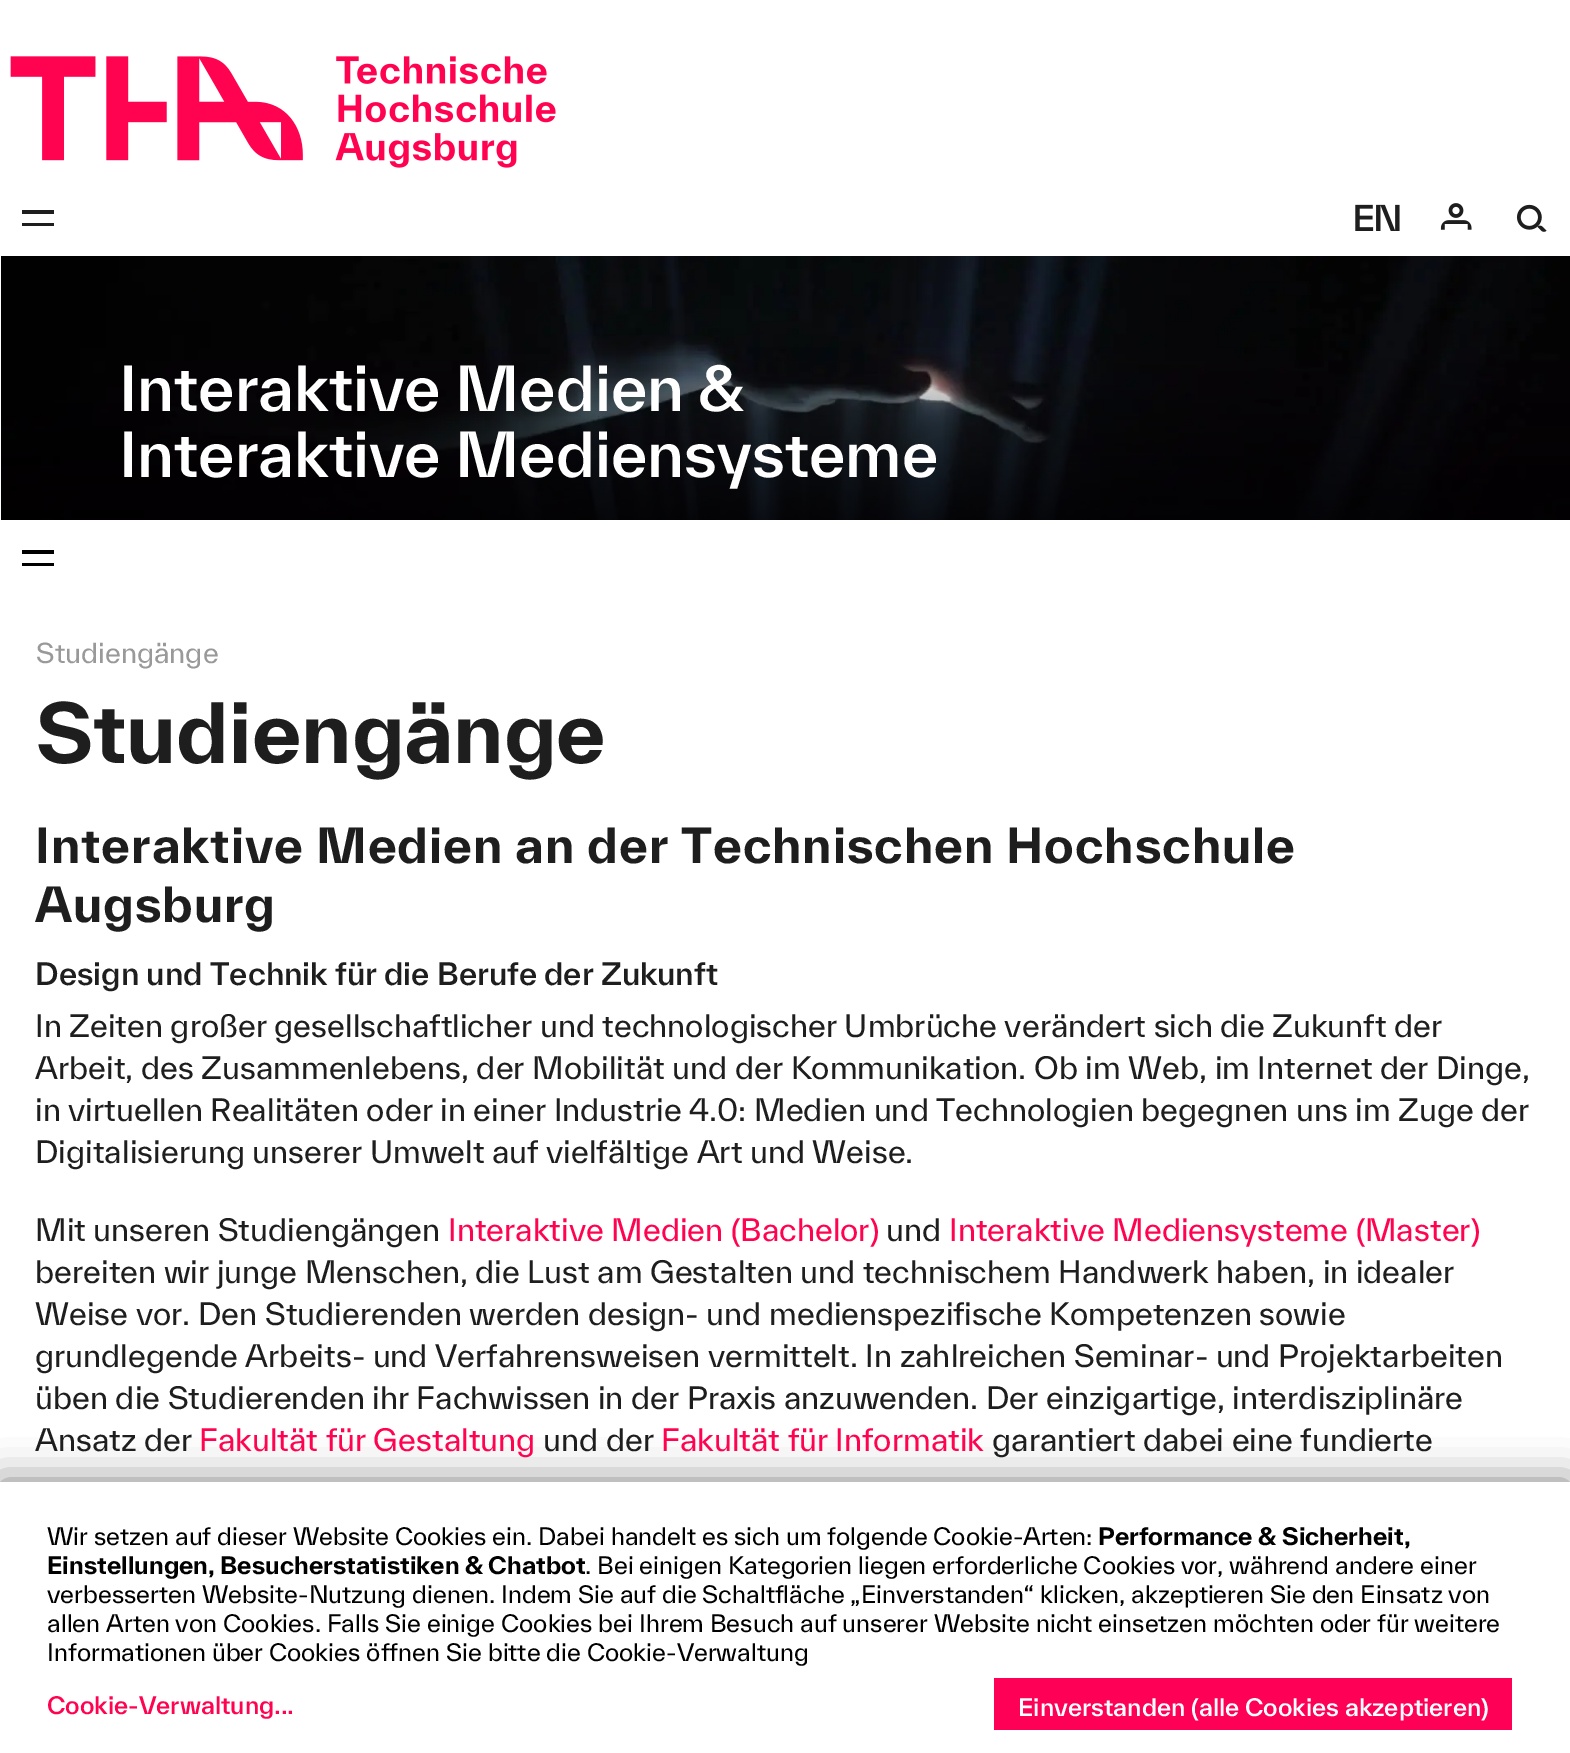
%!PS
<< /PageSize [1570 1753] /PageUsesTransparency true >> setpagedevice
/rgb { 3 { 255 div 3 1 roll } repeat setrgbcolor } def
/font { [ exch dup neg 0 0 3 -1 roll 0 0 ] selectfont } def
/text { moveto show } def
/alpha { dup .setfillconstantalpha .setstrokeconstantalpha } def
/roundrect { 5 dict begin { /r /h /w /y /x } { exch def } forall
  x r add y moveto x w add y 2 copy h add r arct x w add y h add x 1 index r arct
  x y h add x y r arct x y 2 copy exch w add exch r arct closepath end } def
/shadow { 12 dict begin { /a /b /q /h /w /y /x } { exch def } forall gsave /was 0 def
  9 -2 -9 { dup b mul 4 div /e exch def 1 sub .425 mul 2.718 exch exp 1 add a .99 .min exch div /now exch def
    1 1 now sub 1 was sub div sub alpha /was now def
    w h .min e 2 mul add 0 gt { x e sub y e sub w e 2 mul add h e 2 mul add
      q e add b .6 mul add w h .min 2 div e add .min 0 .max roundrect fill } if } for grestore end } def
/picture { 5 dict begin { /h /w /y /x /name } { exch def } forall
  gsave x y translate w h scale
  w h 8 [w 0 0 h 0 0] name (r) file false 3 colorimage grestore end } def
0 .pushpdf14devicefilter
0 1753 translate 1 -1 scale
4 setmiterlimit
255 255 255 rgb
0 0 1570 1753 rectfill
(img_01.rgb) 10 56 546 112 picture
30 30 30 rgb
22 210 32 4 rectfill
22 223 32 3 rectfill
(img_02.rgb) 1355 204 45 27 picture
(img_03.rgb) 1440 203 32 27 picture
(img_04.rgb) 1516 204 31 28 picture
(img_05.rgb) 1 256 1569 264 picture
0 0 0 rgb
22 550 32 4 rectfill
22 563 32 3 rectfill
0 1482 1570 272 0 20 0.5 shadow
255 255 255 rgb
0 1482 1570 271 rectfill
255 0 87 rgb
994 1678 518 52 rectfill
/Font-Medium 60 font
255 255 255 rgb
(Interaktive Medien &) 119 411 text
(Interaktive Mediensysteme) 119 477 text
/Font-Regular 26.75 font
153 153 153 rgb
(Studiengänge) 36 663 text
/Font-Bold 80 font
30 30 30 rgb
(Studiengänge) 36 763 text
/Font-Bold 46.7 font
35 863 moveto 0.95 0 (Interaktive Medien an der Technischen Hochschule) ashow
35 922 moveto 0.95 0 (Augsburg) ashow
/Font-Medium 30 font
(Design und Technik für die Berufe der Zukunft) 35 985 text
/Font-Regular 30 font
(In Zeiten großer gesellschaftlicher und technologischer Umbrüche verändert sich die Zukunft der) 35 1037 text
(Arbeit, des Zusammenlebens, der Mobilität und der Kommunikation. Ob im Web, im Internet der Dinge,) 35 1079 text
(in virtuellen Realitäten oder in einer Industrie 4.0: Medien und Technologien begegnen uns im Zuge der) 35 1121 text
(Digitalisierung unserer Umwelt auf vielfältige Art und Weise.) 35 1163 text
(Mit unseren Studiengängen) 35 1241 text
255 3 80 rgb
(Interaktive Medien \(Bachelor\)) 448 1241 text
30 30 30 rgb
(und) 886 1241 text
255 3 80 rgb
(Interaktive Mediensysteme \(Master\)) 949 1241 text
30 30 30 rgb
(bereiten wir junge Menschen, die Lust am Gestalten und technischem Handwerk haben, in idealer) 35 1283 text
(Weise vor. Den Studierenden werden design- und medienspezifische Kompetenzen sowie) 35 1325 text
(grundlegende Arbeits- und Verfahrensweisen vermittelt. In zahlreichen Seminar- und Projektarbeiten) 35 1367 text
(üben die Studierenden ihr Fachwissen in der Praxis anzuwenden. Der einzigartige, interdisziplinäre) 35 1409 text
(Ansatz der) 35 1451 text
255 3 80 rgb
(Fakultät für Gestaltung) 199 1451 text
30 30 30 rgb
(und der) 543 1451 text
255 3 80 rgb
(Fakultät für Informatik) 661 1451 text
30 30 30 rgb
(garantiert dabei eine fundierte) 992 1451 text
/Font-Regular 23.33 font
0 0 0 rgb
(Wir setzen auf dieser Website Cookies ein. Dabei handelt es sich um folgende Cookie-Arten:) 47 1545 text
/Font-Bold 23.33 font
(Performance & Sicherheit,) 1098 1545 text
(Einstellungen, Besucherstatistiken & Chatbot) 47 1574 text
/Font-Regular 23.33 font
(. Bei einigen Kategorien liegen erforderliche Cookies vor, während andere einer) 585 1574 text
(verbesserten Website-Nutzung dienen. Indem Sie auf die Schaltfläche „Einverstanden“ klicken, akzeptieren Sie den Einsatz von) 47 1603 text
(allen Arten von Cookies. Falls Sie einige Cookies bei Ihrem Besuch auf unserer Website nicht einsetzen möchten oder für weitere) 47 1632 text
(Informationen über Cookies öffnen Sie bitte die Cookie-Verwaltung) 47 1661 text
/Font-Medium 23.33 font
255 3 80 rgb
(Cookie-Verwaltung...) 47 1714 text
255 255 255 rgb
(Einverstanden \(alle Cookies akzeptieren\)) 1018 1716 text
.poppdf14devicefilter showpage
